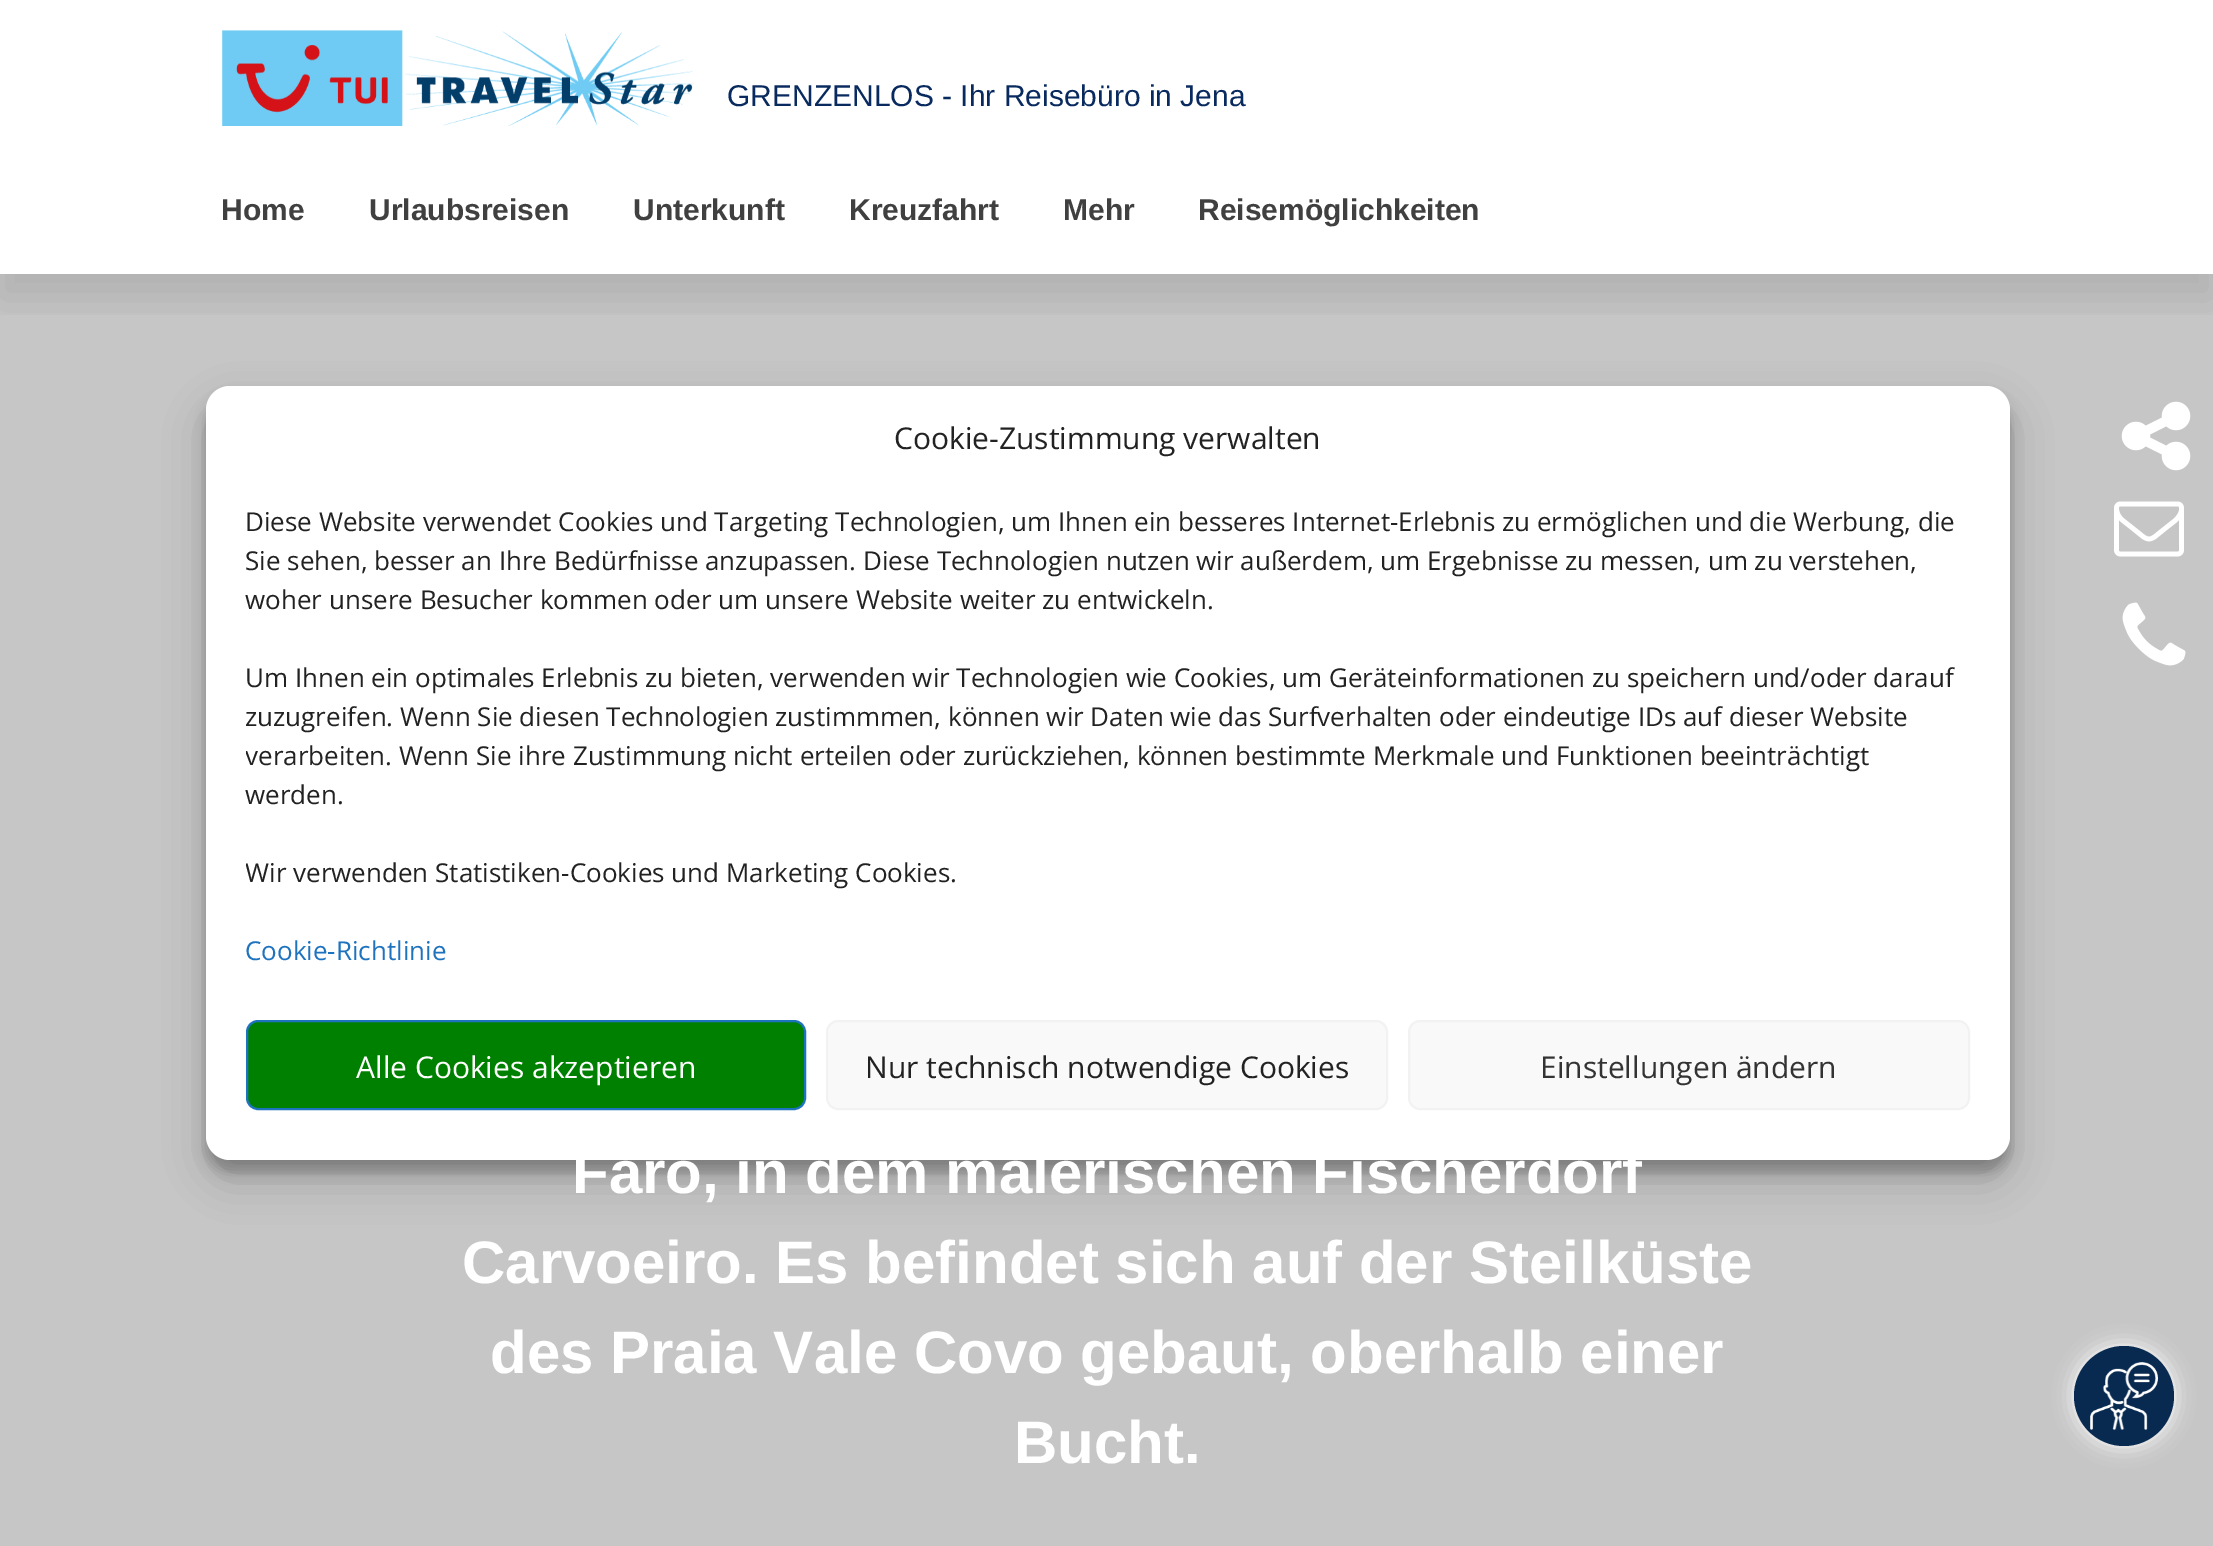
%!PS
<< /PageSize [2213 1546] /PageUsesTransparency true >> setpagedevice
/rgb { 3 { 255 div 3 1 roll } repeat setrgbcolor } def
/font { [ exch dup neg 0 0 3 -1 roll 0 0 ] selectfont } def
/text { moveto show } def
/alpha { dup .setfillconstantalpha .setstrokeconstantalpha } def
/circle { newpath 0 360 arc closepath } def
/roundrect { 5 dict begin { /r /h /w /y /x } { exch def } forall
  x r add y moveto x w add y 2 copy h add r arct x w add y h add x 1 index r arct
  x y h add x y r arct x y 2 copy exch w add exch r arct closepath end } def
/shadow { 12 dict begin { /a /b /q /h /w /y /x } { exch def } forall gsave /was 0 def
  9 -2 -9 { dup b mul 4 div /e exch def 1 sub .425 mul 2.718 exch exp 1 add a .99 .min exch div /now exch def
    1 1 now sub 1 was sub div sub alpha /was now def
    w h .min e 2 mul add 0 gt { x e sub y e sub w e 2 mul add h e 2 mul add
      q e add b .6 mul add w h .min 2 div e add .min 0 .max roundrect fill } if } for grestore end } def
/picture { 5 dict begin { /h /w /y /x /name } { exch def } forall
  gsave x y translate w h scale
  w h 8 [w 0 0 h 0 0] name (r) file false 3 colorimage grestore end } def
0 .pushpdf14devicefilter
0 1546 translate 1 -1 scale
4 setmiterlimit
255 255 255 rgb
0 0 2213 1546 rectfill
198 198 198 rgb
0 274 2213 1272 rectfill
gsave
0 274 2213 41 rectclip
0 0 0 rgb
0 24 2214 274 0 20 0.1 shadow
grestore
(img_01.rgb) 221 30 473 96 picture
(img_02.rgb) 2121 401 70 70 picture
(img_03.rgb) 2114 501 70 56 picture
(img_04.rgb) 2122 602 64 64 picture
255 255 255 rgb
2074 1346 100 100 50 10 1 shadow
9 42 80 rgb
2124 1396 50 circle fill
(img_05.rgb) 2090 1362 68 68 picture
0 0 0 rgb
206 398 1804 774 24 6 0.23 shadow
206 406 1804 774 24 20 0.19 shadow
255 255 255 rgb
206 386 1804 774 24 roundrect fill
0 128 0 rgb
247 1021 558 88 11 roundrect gsave fill grestore
30 115 190 rgb
2 setlinewidth
stroke
249 249 249 rgb
827 1021 560 88 11 roundrect gsave fill grestore
242 242 242 rgb
stroke
249 249 249 rgb
1409 1021 560 88 11 roundrect gsave fill grestore
242 242 242 rgb
stroke
/LiberationSans-Regular 30 font
9 42 94 rgb
(GRENZENLOS - Ihr Reisebüro in Jena) 727 106 text
/LiberationSans-Bold 30 font
64 64 64 rgb
(Home) 221 220 text
(Urlaubsreisen) 369 220 text
(Unterkunft) 633 220 text
(Kreuzfahrt) 849 220 text
(Mehr) 1063 220 text
(Reisemöglichkeiten) 1198 220 text
/LiberationSans-Bold 60 font
255 255 255 rgb
(Faro, in dem malerischen Fischerdorf) 572 1193 text
(Carvoeiro. Es befindet sich auf der Steilküste) 462 1283 text
(des Praia Vale Covo gebaut, oberhalb einer) 490 1373 text
(Bucht.) 1014 1463 text
/OpenSans-Regular 30 font
34 34 34 rgb
(Cookie-Zustimmung verwalten) 894 449 text
/OpenSans-Regular 26 font
(Diese Website verwendet Cookies und Targeting Technologien, um Ihnen ein besseres Internet-Erlebnis zu ermöglichen und die Werbung, die) 245 531 text
(Sie sehen, besser an Ihre Bedürfnisse anzupassen. Diese Technologien nutzen wir außerdem, um Ergebnisse zu messen, um zu verstehen,) 245 570 text
(woher unsere Besucher kommen oder um unsere Website weiter zu entwickeln.) 245 609 text
(Um Ihnen ein optimales Erlebnis zu bieten, verwenden wir Technologien wie Cookies, um Geräteinformationen zu speichern und/oder darauf) 245 687 text
(zuzugreifen. Wenn Sie diesen Technologien zustimmmen, können wir Daten wie das Surfverhalten oder eindeutige IDs auf dieser Website) 245 726 text
gsave
246 502 1724 478 rectclip
(verarbeiten. Wenn Sie ihre Zustimmung nicht erteilen oder zurückziehen, können bestimmte Merkmale und Funktionen beeinträchtigt) 245 765 text
grestore
(werden.) 245 804 text
gsave
246 502 1724 478 rectclip
(Wir verwenden Statistiken-Cookies und Marketing Cookies.) 245 882 text
grestore
30 115 190 rgb
(Cookie-Richtlinie) 245 960 text
/OpenSans-Regular 30 font
255 255 255 rgb
(Alle Cookies akzeptieren) 356 1078 text
34 34 34 rgb
(Nur technisch notwendige Cookies) 865 1078 text
51 51 51 rgb
(Einstellungen ändern) 1540 1078 text
.poppdf14devicefilter showpage
